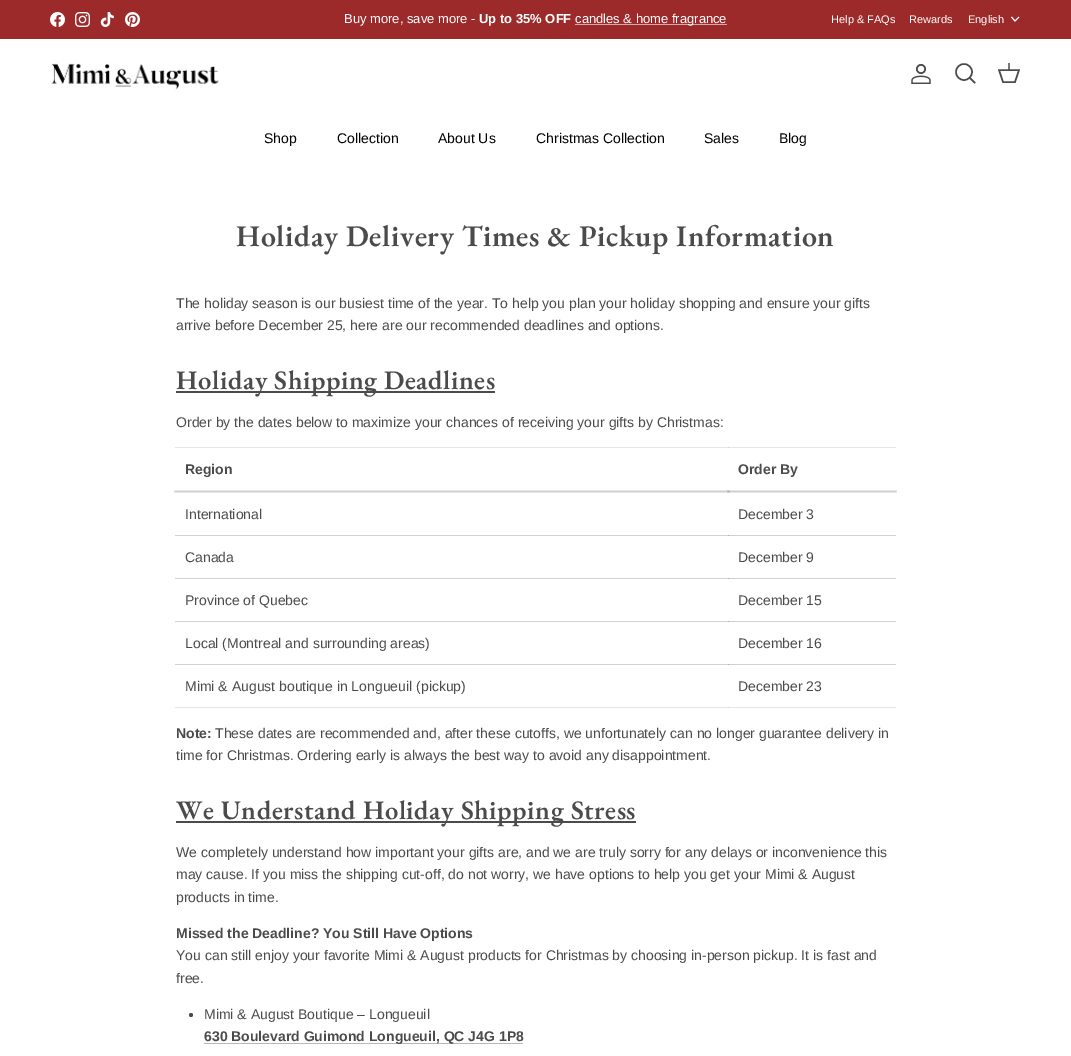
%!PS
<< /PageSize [1071 1056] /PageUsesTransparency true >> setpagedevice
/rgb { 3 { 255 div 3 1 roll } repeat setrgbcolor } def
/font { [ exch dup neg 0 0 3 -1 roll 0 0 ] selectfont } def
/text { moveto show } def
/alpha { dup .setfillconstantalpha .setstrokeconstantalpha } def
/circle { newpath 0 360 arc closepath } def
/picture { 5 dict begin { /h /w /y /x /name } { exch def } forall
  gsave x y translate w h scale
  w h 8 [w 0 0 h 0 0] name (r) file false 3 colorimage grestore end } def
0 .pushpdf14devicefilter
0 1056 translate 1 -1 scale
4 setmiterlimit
255 255 255 rgb
0 0 1071 1056 rectfill
230 230 230 rgb
174 490 723 3 rectfill
208 208 208 rgb
727 490 3 3 rectfill
230 230 230 rgb
175 447 721 1 rectfill
208 208 208 rgb
175 491 554 1 rectfill
189 189 189 rgb
727 491 2 1 rectfill
208 208 208 rgb
175 535 721 1 rectfill
175 578 721 1 rectfill
175 621 721 1 rectfill
230 230 230 rgb
175 707 721 1 rectfill
208 208 208 rgb
175 664 721 1 rectfill
156 42 42 rgb
0 0 1071 39 rectfill
(img_01.rgb) 50 12 15 15 picture
(img_02.rgb) 75 12 15 15 picture
(img_03.rgb) 100 12 14 15 picture
(img_04.rgb) 125 12 15 15 picture
215 170 170 rgb
575 24 152 1 rectfill
255 255 255 rgb
1019 17 moveto -4 4 rlineto -3.5 -4 rlineto stroke
(img_05.rgb) 51 63 168 27 picture
(img_06.rgb) 911 64 20 20 picture
75 75 75 rgb
1.5 setlinewidth
964 72 8 circle stroke
2 setlinecap
970 78 moveto 4.5 4.5 rlineto stroke
0 setlinecap
999 70 moveto 20 0 rlineto -4 12 rlineto -12 0 rlineto closepath stroke
0.75 alpha
1008 63 2 8 rectfill
1 alpha
176 391 319 2 rectfill
208 208 208 rgb
728 447 1 1 rectfill
728 491 168 1 rectfill
189 189 189 rgb
728 491 2 1 rectfill
173 173 173 rgb
728 491 1 1 rectfill
728 535 1 1 rectfill
728 578 1 1 rectfill
728 621 1 1 rectfill
728 664 1 1 rectfill
208 208 208 rgb
728 707 1 1 rectfill
75 75 75 rgb
176 821 460 2 rectfill
191 1015 2 circle fill
183 183 183 rgb
204 1043 319 1 rectfill
/LiberationSans-Regular 13 font
255 255 255 rgb
(Buy more, save more -) 344 23 text
/LiberationSans-Bold 13 font
(Up to 35% OFF) 479 23 text
/LiberationSans-Regular 13 font
(candles & home fragrance) 575 23 text
/LiberationSans-Regular 11 font
(Help & FAQs) 831 23 text
(Rewards) 909 23 text
(English) 968 23 text
/LiberationSans-Regular 14 font
0 0 0 rgb
(Shop) 264 143 text
(Collection) 337 143 text
(About Us) 438 143 text
(Christmas Collection) 536 143 text
(Sales) 704 143 text
(Blog) 779 143 text
/EBGaramond-SemiBold 30 font
75 75 75 rgb
236 246 moveto 0.6 0 (Holiday Delivery Times & Pickup Information) ashow
/LiberationSans-Regular 14 font
(The holiday season is our busiest time of the year. To help you plan your holiday shopping and ensure your gifts) 176 308 text
(arrive before December 25, here are our recommended deadlines and options.) 176 330 text
/EBGaramond-SemiBold 26.75 font
176 389 moveto 0.55 0 (Holiday Shipping Deadlines) ashow
/LiberationSans-Regular 14 font
(Order by the dates below to maximize your chances of receiving your gifts by Christmas:) 176 427 text
/LiberationSans-Bold 14 font
(Region) 185 474 text
(Order By) 738 474 text
/LiberationSans-Regular 14 font
(International) 185 519 text
(December 3) 738 519 text
(Canada) 185 562 text
(December 9) 738 562 text
(Province of Quebec) 185 605 text
(December 15) 738 605 text
(Local \(Montreal and surrounding areas\)) 185 648 text
(December 16) 738 648 text
(Mimi & August boutique in Longueuil \(pickup\)) 185 691 text
(December 23) 738 691 text
/LiberationSans-Bold 14 font
(Note:) 176 738 text
/LiberationSans-Regular 14 font
(These dates are recommended and, after these cutoffs, we unfortunately can no longer guarantee delivery in) 215 738 text
(time for Christmas. Ordering early is always the best way to avoid any disappointment.) 176 760 text
/EBGaramond-SemiBold 26.75 font
176 819 moveto 0.55 0 (We Understand Holiday Shipping Stress) ashow
/LiberationSans-Regular 14 font
(We completely understand how important your gifts are, and we are truly sorry for any delays or inconvenience this) 176 857 text
(may cause. If you miss the shipping cut-off, do not worry, we have options to help you get your Mimi & August) 176 879 text
(products in time.) 176 902 text
/LiberationSans-Bold 14 font
(Missed the Deadline? You Still Have Options) 176 938 text
/LiberationSans-Regular 14 font
(You can still enjoy your favorite Mimi & August products for Christmas by choosing in-person pickup. It is fast and) 176 960 text
(free.) 176 983 text
(Mimi & August Boutique – Longueuil) 204 1019 text
/LiberationSans-Bold 14 font
(630 Boulevard Guimond Longueuil, QC J4G 1P8) 204 1041 text
.poppdf14devicefilter showpage
